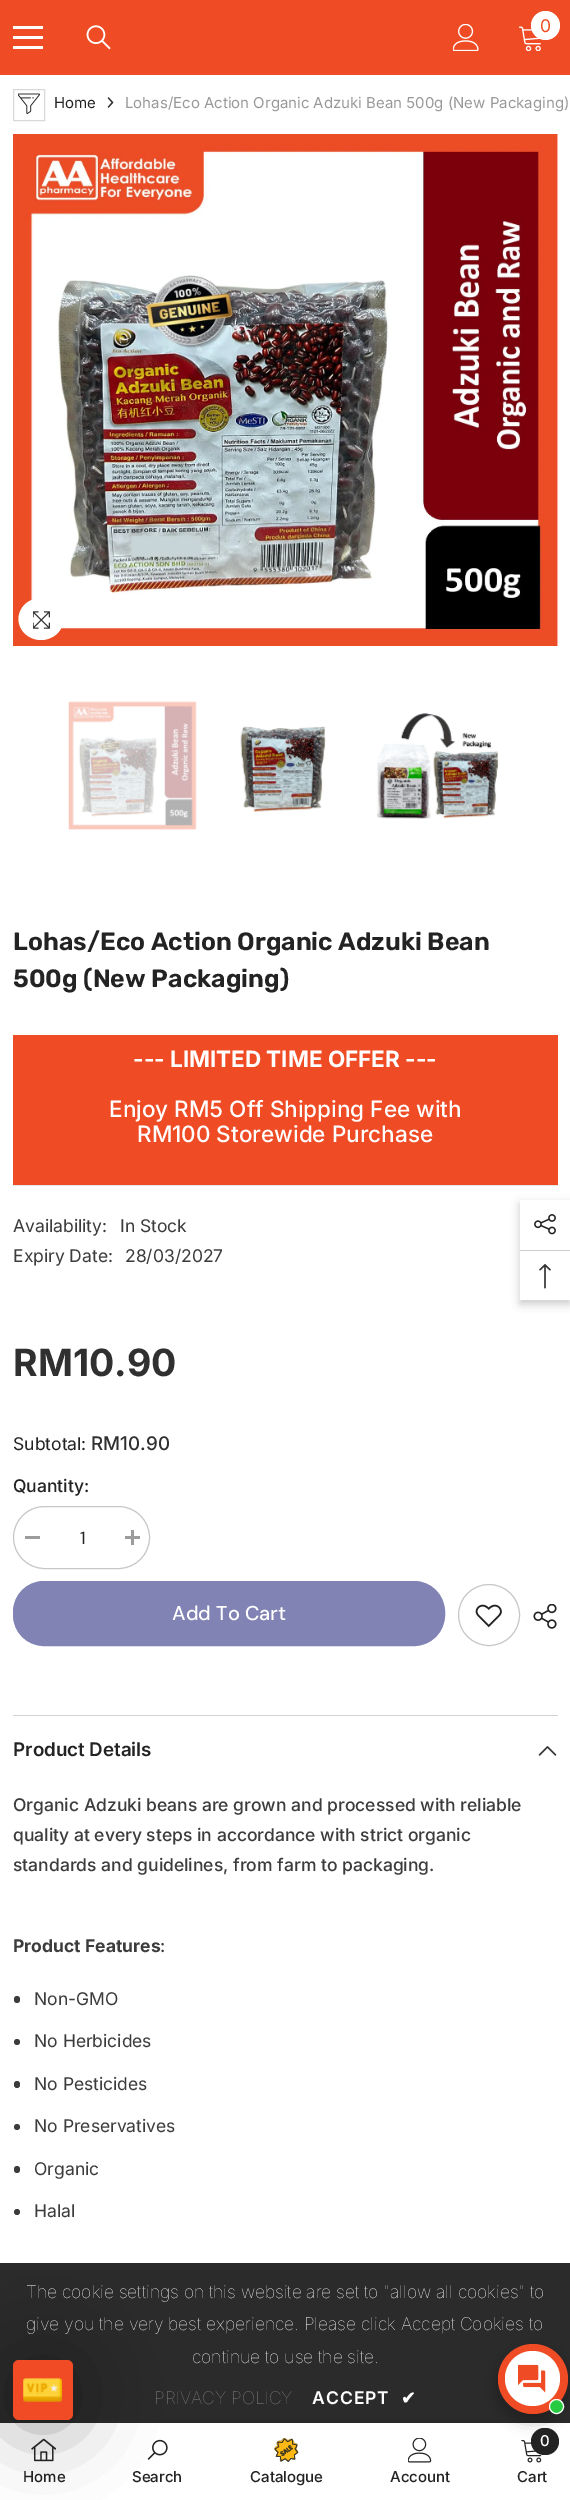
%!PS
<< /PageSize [570 2500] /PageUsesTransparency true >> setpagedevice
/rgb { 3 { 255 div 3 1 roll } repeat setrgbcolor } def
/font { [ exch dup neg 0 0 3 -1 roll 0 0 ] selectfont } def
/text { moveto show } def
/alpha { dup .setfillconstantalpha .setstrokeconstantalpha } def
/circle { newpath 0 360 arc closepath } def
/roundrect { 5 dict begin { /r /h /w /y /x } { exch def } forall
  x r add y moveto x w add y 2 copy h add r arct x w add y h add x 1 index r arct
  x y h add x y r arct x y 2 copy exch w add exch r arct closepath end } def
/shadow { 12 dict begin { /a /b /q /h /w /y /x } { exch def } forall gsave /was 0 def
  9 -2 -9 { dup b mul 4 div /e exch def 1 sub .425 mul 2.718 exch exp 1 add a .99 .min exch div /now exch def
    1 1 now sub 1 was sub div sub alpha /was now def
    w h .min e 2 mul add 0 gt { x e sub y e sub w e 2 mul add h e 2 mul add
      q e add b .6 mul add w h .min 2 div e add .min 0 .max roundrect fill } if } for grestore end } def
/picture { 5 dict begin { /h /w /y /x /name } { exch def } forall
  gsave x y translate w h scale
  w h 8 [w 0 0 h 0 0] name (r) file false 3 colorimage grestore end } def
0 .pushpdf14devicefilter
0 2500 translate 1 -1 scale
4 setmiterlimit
255 255 255 rgb
0 0 570 2500 rectfill
239 75 37 rgb
0 0 570 75 rectfill
255 255 255 rgb
13 36 30 3 rectfill
13 26 30 3 rectfill
13 46 30 3 rectfill
(img_01.rgb) 86 25 25 25 picture
(img_02.rgb) 453 24 26 27 picture
(img_03.rgb) 518 26 23 25 picture
545.5 25.5 14.5 circle fill
217 217 217 rgb
13.5 89.5 31 31 rectstroke
(img_04.rgb) 18 93 22 21 picture
(img_05.rgb) 107 97 7 11 picture
(img_06.rgb) 13 134 545 512 picture
255 255 255 rgb
41 598 moveto 12.5 0 22.5 9.5 22.5 21 rcurveto 0 11.5 -10 21 -22.5 21 rcurveto -12.5 0 -22.5 -9.5 -22.5 -21 rcurveto 0 -11.5 10 -21 22.5 -21 rcurveto closepath fill
(img_07.rgb) 33 611 17 18 picture
(img_08.rgb) 68 701 129 129 picture
(img_09.rgb) 240 726 86 87 picture
(img_10.rgb) 376 713 123 106 picture
239 75 37 rgb
13 1035 545 150 rectfill
230 230 230 rgb
13 1185 545 1 rectfill
199 199 199 rgb
13.5 1506.5 136 62 31 roundrect stroke
156 156 156 rgb
25 1536 15 3 rectfill
125 1536 15 3 rectfill
131 1530 3 15 rectfill
129 131 181 rgb
13.5 1581.5 431 64 30.5 roundrect gsave fill grestore
stroke
199 199 199 rgb
489 1615 30.5 circle stroke
(img_11.rgb) 475 1604 27 24 picture
(img_12.rgb) 533 1604 24 25 picture
211 211 211 rgb
13 1715 545 1 rectfill
(img_13.rgb) 538 1746 19 10 picture
60 60 60 rgb
14 1996 6 7 3 roundrect fill
17 2042 3 circle fill
14 2081 6 7 3 roundrect fill
17 2127 3 circle fill
14 2166 6 7 3 roundrect fill
17 2212 3 circle fill
0.9 alpha
20 20 20 rgb
0 2263 570 160 rectfill
1 alpha
0 0 0 rgb
0 2423 570 77 0 5.5 0.12 shadow
255 255 255 rgb
0 2423 570 77 rectfill
(img_14.rgb) 31 2438 25 24 picture
(img_15.rgb) 147 2439 21 21 picture
(img_16.rgb) 274 2438 25 24 picture
(img_17.rgb) 408 2438 24 25 picture
(img_18.rgb) 521 2440 21 23 picture
35 35 35 rgb
531 2428 28 27 13.5 roundrect fill
gsave
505 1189 moveto 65 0 rlineto 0 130 rlineto -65 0 rlineto closepath 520 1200 moveto 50 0 rlineto 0 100 rlineto -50 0 rlineto closepath eoclip newpath
0 0 0 rgb
520 1204 50 100 0 4.5 0.2 shadow
grestore
(img_19.rgb) 534 1214 22 21 picture
204 204 204 rgb
520 1250 50 1 rectfill
(img_20.rgb) 539 1264 12 25 picture
0 0 0 rgb
13 2365 60 60 6 40 0.37 shadow
240 75 37 rgb
13 2360 60 60 6 roundrect fill
(img_21.rgb) 23 2378 40 24 picture
0 0 0 rgb
498 2351 70 70 35 7.5 0.25 shadow
239 75 37 rgb
533 2379 35 circle fill
255 255 255 rgb
532.5 2378.5 27.5 circle fill
(img_22.rgb) 518 2364 28 29 picture
39 202 64 rgb
556.5 2406.5 7 circle gsave fill grestore
255 255 255 rgb
stroke
/Inter-Regular 17.5 font
239 75 37 rgb
(0) 540 32 text
/Inter-Regular 15 font
35 35 35 rgb
(Home) 54 108 text
153 153 153 rgb
(Lohas/Eco Action Organic Adzuki Bean 500g \(New Packaging\)) 125 108 text
/Rubik-SemiBold 25 font
35 35 35 rgb
(Lohas/Eco Action Organic Adzuki Bean) 13 950 text
(500g \(New Packaging\)) 13 987 text
/Inter-Bold 22.5 font
255 255 255 rgb
(--- LIMITED TIME OFFER ---) 133 1067 text
/Inter-Medium 22.5 font
(Enjoy RM5 Off Shipping Fee with) 109 1117 text
(RM100 Storewide Purchase) 137 1142 text
/Inter-Regular 17.5 font
60 60 60 rgb
(Availability:) 13 1232 text
(In Stock) 120 1232 text
(Expiry Date:) 13 1262 text
(28/03/2027) 125 1262 text
/Inter-Bold 37.5 font
48 48 48 rgb
(RM10.90) 13 1376 text
/Inter-Regular 17.5 font
35 35 35 rgb
(Subtotal:) 13 1450 text
/Inter-Medium 18.75 font
48 48 48 rgb
(RM10.90) 91 1450 text
/Inter-Medium 17.5 font
35 35 35 rgb
(Quantity:) 13 1492 text
/DMSans-Regular 17.5 font
(1) 80 1544 text
/DMSans-Medium 20 font
255 255 255 rgb
(Add To Cart) 172 1620 text
/Inter-SemiBold 18.75 font
35 35 35 rgb
(Product Details) 13 1756 text
/Inter-Medium 17.5 font
60 60 60 rgb
(Organic Adzuki beans are grown and processed with reliable) 13 1811 text
(quality at every steps in accordance with strict organic) 13 1841 text
(standards and guidelines, from farm to packaging.) 13 1871 text
/Inter-Bold 17.5 font
(Product Features) 13 1952 text
/Inter-Medium 17.5 font
(:) 160 1952 text
/Inter-Regular 17.5 font
(Non-GMO) 34 2005 text
(No Herbicides) 34 2047 text
(No Pesticides) 34 2090 text
(No Preservatives) 34 2132 text
(Organic) 34 2175 text
(Halal) 34 2217 text
/Inter-Medium 15 font
35 35 35 rgb
(Home) 23 2482 text
(Search) 132 2482 text
(Catalogue) 250 2482 text
(Account) 390 2482 text
255 255 255 rgb
(0) 540 2446 text
35 35 35 rgb
(Cart) 517 2482 text
/Inter-Thin 17.5 font
255 255 255 rgb
(The cookie settings on this website are set to "allow all cookies" to) 26 2298 text
(give you the very best experience. Please click Accept Cookies to) 26 2330 text
(continue to use the site.) 192 2363 text
129 129 129 rgb
(PRIVACY POLICY) 154 2404 text
/Inter-SemiBold 17.5 font
255 255 255 rgb
312 2404 moveto 1 0 (ACCEPT) ashow
/DejaVuSans-Bold 17.5 font
401 2404 moveto 1 0 (✔) ashow
.poppdf14devicefilter showpage
